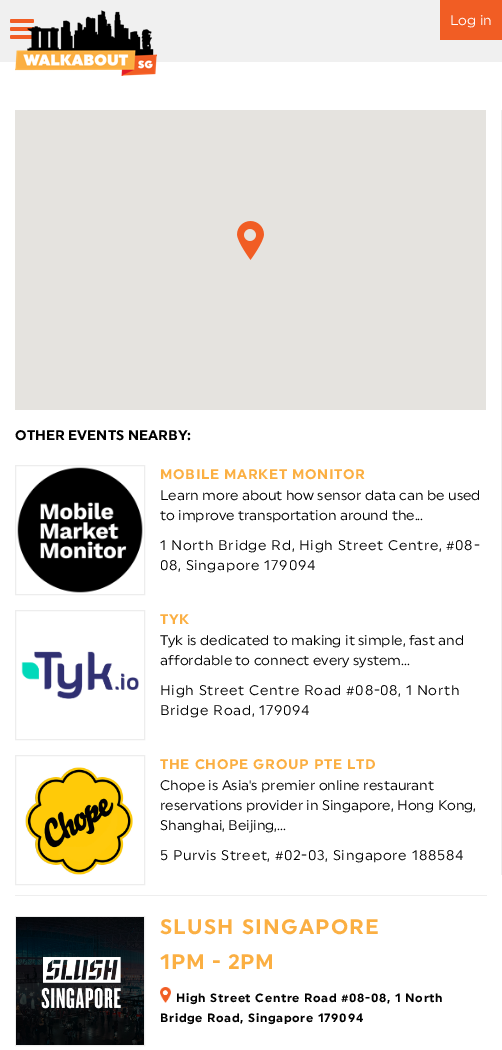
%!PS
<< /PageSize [502 1050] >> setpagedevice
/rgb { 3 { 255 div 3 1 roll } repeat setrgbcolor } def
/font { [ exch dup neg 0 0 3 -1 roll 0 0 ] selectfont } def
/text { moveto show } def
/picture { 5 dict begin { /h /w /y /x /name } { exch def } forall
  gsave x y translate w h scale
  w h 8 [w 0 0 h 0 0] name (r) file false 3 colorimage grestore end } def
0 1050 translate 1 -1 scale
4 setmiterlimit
255 255 255 rgb
0 0 502 1050 rectfill
240 240 240 rgb
0 0 502 62 rectfill
(img_02.rgb) 10 19 24 20 picture
(img_01.rgb) 15 10 142 66 picture
241 93 36 rgb
440 0 62 40 rectfill
238 238 238 rgb
501 110 1 765 rectfill
229 227 223 rgb
15 110 471 300 rectfill
(img_03.rgb) 237 221 27 39 picture
237 237 237 rgb
15.5 465.5 129 129 rectstroke
(img_04.rgb) 17 467 126 126 picture
15.5 610.5 129 129 rectstroke
(img_05.rgb) 21 651 118 48 picture
15.5 755.5 129 129 rectstroke
(img_06.rgb) 25 767 108 108 picture
238 238 238 rgb
15 895 472 1 rectfill
237 237 237 rgb
15.5 916.5 129 129 rectstroke
(img_07.rgb) 16 917 128 128 picture
(img_08.rgb) 160 987 11 16 picture
/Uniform-Regular 14 font
255 255 255 rgb
(Log in) 450 25 text
/Uniform-Bold 14 font
0 0 0 rgb
(OTHER EVENTS NEARBY:) 15 440 text
251 175 66 rgb
160 479 moveto 0.65 0 (MOBILE MARKET MONITOR) ashow
/Uniform-Regular 14 font
0 0 0 rgb
(Learn more about how sensor data can be used) 160 500 text
(to improve transportation around the...) 160 520 text
160 550 moveto 0.65 0 (1 North Bridge Rd, High Street Centre, #08-) ashow
160 570 moveto 0.65 0 (08, Singapore 179094) ashow
/Uniform-Bold 14 font
251 175 66 rgb
160 624 moveto 0.65 0 (TYK) ashow
/Uniform-Regular 14 font
0 0 0 rgb
(Tyk is dedicated to making it simple, fast and) 160 645 text
(affordable to connect every system...) 160 665 text
160 695 moveto 0.65 0 (High Street Centre Road #08-08, 1 North) ashow
160 715 moveto 0.65 0 (Bridge Road, 179094) ashow
/Uniform-Bold 14 font
251 175 66 rgb
160 769 moveto 0.65 0 (THE CHOPE GROUP PTE LTD) ashow
/Uniform-Regular 14 font
0 0 0 rgb
(Chope is Asia's premier online restaurant) 160 790 text
(reservations provider in Singapore, Hong Kong,) 160 810 text
(Shanghai, Beijing,...) 160 830 text
160 860 moveto 0.65 0 (5 Purvis Street, #02-03, Singapore 188584) ashow
/Uniform-Bold 21 font
251 175 66 rgb
160 934 moveto 1.2 0 (SLUSH SINGAPORE) ashow
160 969 moveto 0.65 0 (1PM - 2PM) ashow
/Uniform-Bold 12 font
0 0 0 rgb
176 1002 moveto 0.65 0 (High Street Centre Road #08-08, 1 North) ashow
160 1022 moveto 0.65 0 (Bridge Road, Singapore 179094) ashow
showpage
